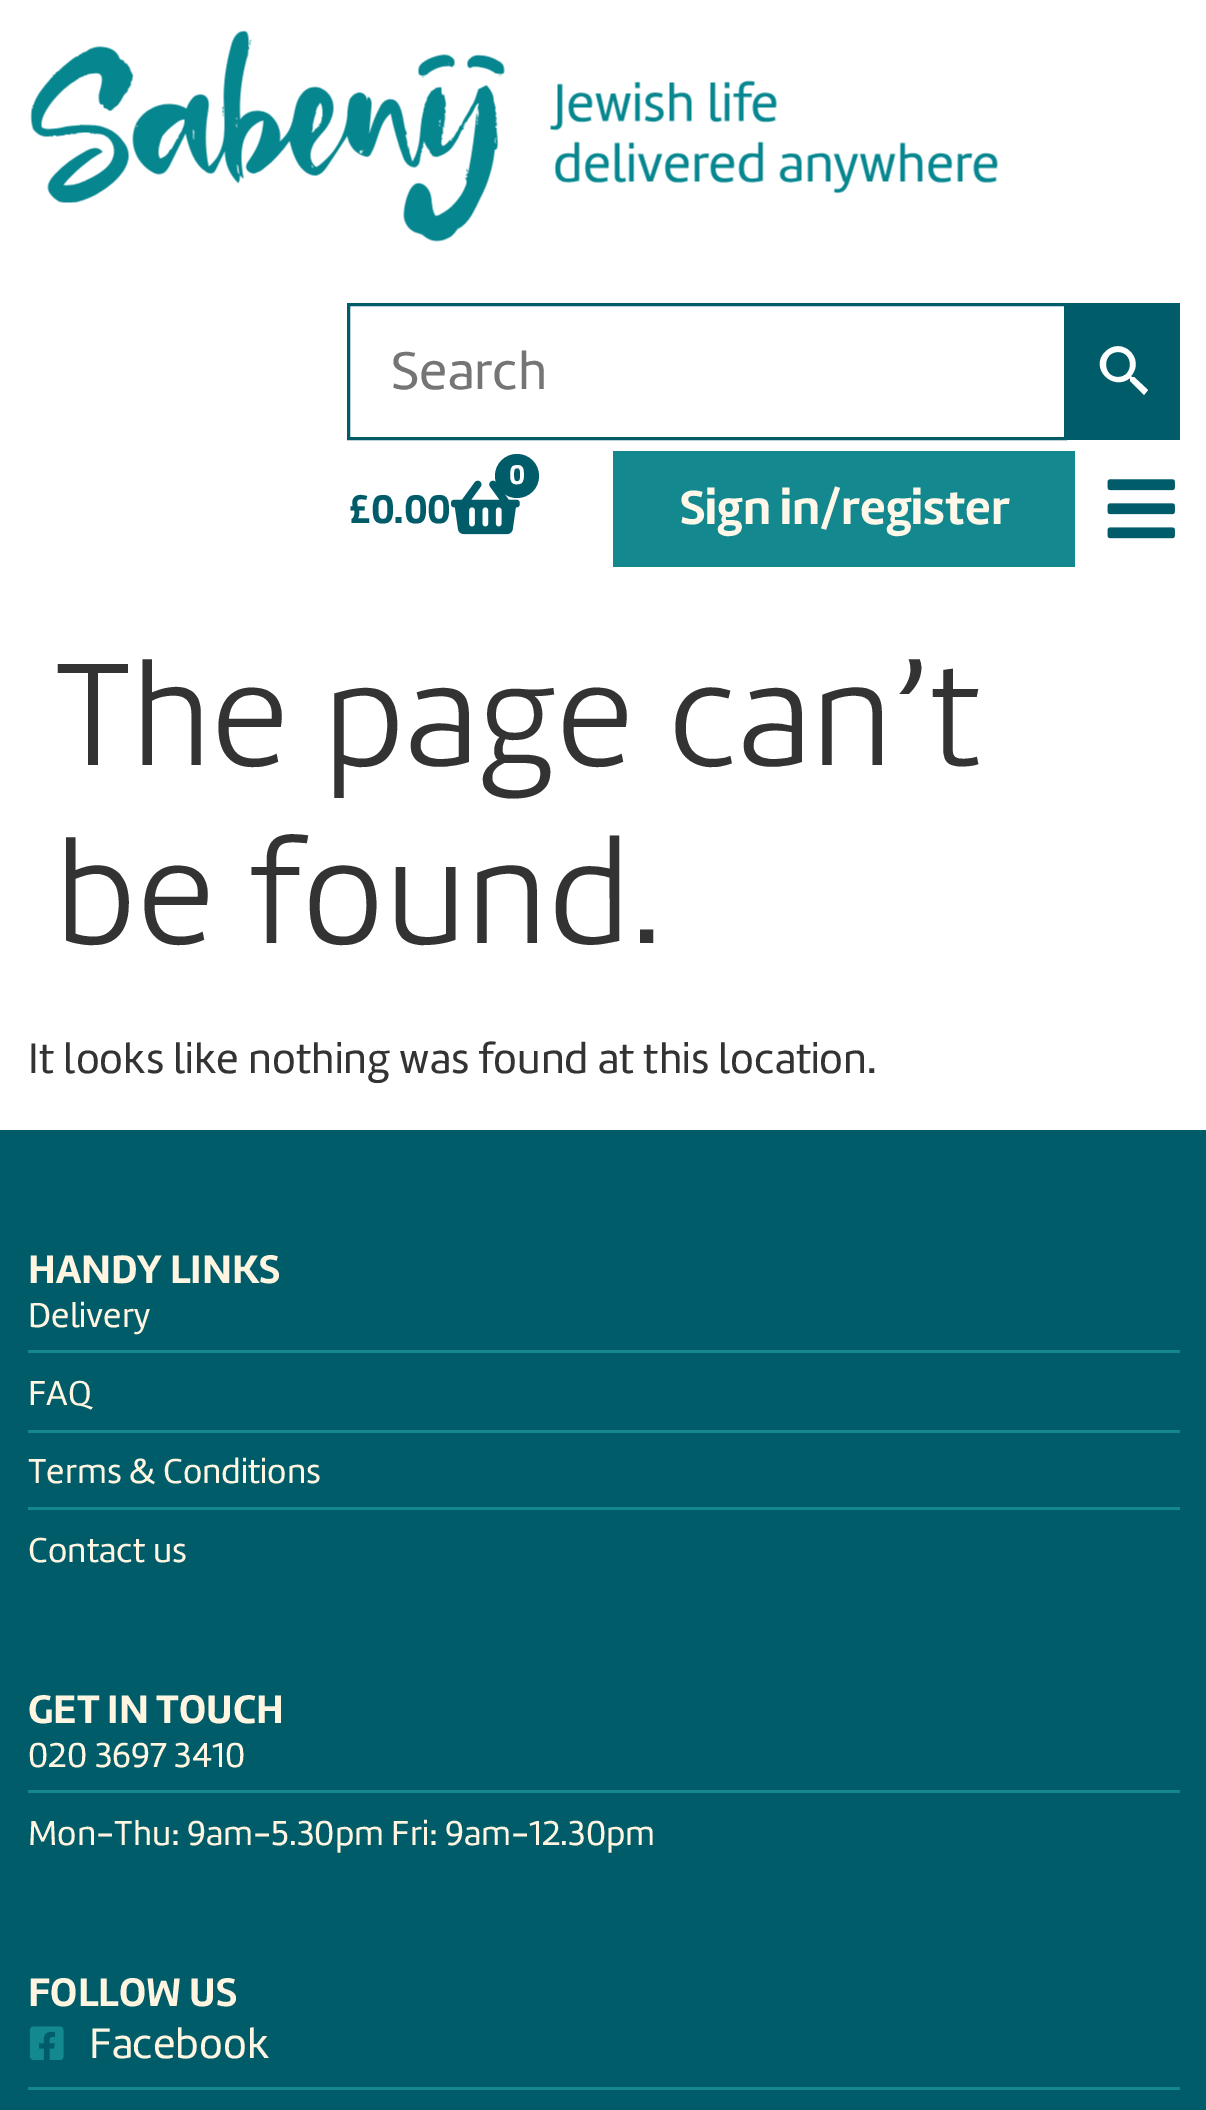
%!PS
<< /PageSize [1206 2110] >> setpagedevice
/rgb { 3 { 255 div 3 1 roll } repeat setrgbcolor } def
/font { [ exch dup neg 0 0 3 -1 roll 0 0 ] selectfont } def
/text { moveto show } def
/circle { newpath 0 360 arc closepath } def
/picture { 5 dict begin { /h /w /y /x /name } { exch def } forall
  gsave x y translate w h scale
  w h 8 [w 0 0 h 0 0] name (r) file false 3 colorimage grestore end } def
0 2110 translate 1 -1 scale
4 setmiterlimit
255 255 255 rgb
0 0 1206 2110 rectfill
(img_01.rgb) 30 30 968 212 picture
1 92 105 rgb
3 setlinewidth
348.5 304.5 717 134 rectstroke
1067 303 113 137 rectfill
255 255 255 rgb
1134 377 moveto -2 0 rlineto -1 -1 rlineto 15 -17 -9 -41 -26 -24 rcurveto -16 16 8 40 25 26 rcurveto 0 1 rlineto 0 2 rlineto 14 14 rlineto 4 -5 rlineto closepath 1118 377 moveto -16 0 -16 -25 0 -25 rcurveto 16 0 16 25 0 25 rcurveto closepath fill
(img_02.rgb) 451 480 69 55 picture
0 92 105 rgb
517 476 22 circle fill
19 136 142 rgb
613 451 462 116 rectfill
(img_03.rgb) 1107 479 68 60 picture
0 92 105 rgb
0 1130 1206 980 rectfill
19 136 142 rgb
28 1350 1152 3 rectfill
28 1430 1152 3 rectfill
28 1507 1152 3 rectfill
28 1790 1152 3 rectfill
(img_04.rgb) 29 2026 35 34 picture
28 2087 1152 3 rectfill
/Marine-Regular 55 font
117 117 117 rgb
(Search) 391 389 text
/Marine-Bold 28 font
255 255 255 rgb
(0) 509 484 text
/Marine-Bold 41.25 font
0 92 105 rgb
(£0.00) 349 523 text
/Marine-Bold 49.5 font
255 248 233 rgb
(Sign in/register) 680 524 text
/Marine-Light 151.25 font
51 51 51 rgb
(The page can’t) 55 765 text
(be found.) 55 943 text
/Marine-Regular 44 font
(It looks like nothing was found at this location.) 28 1073 text
/Marine-Bold 41.25 font
255 245 224 rgb
(HANDY LINKS) 28 1283 text
/Marine-Regular 35.75 font
(Delivery) 28 1327 text
(FAQ) 28 1405 text
(Terms & Conditions) 28 1483 text
(Contact us) 28 1562 text
/Marine-Bold 41.25 font
(GET IN TOUCH) 28 1723 text
/Marine-Regular 35.75 font
(020 3697 3410) 28 1767 text
(Mon-Thu: 9am-5.30pm Fri: 9am-12.30pm) 28 1845 text
/Marine-Bold 41.25 font
(FOLLOW US) 28 2006 text
/Marine-Regular 44 font
(Facebook) 89 2058 text
showpage
